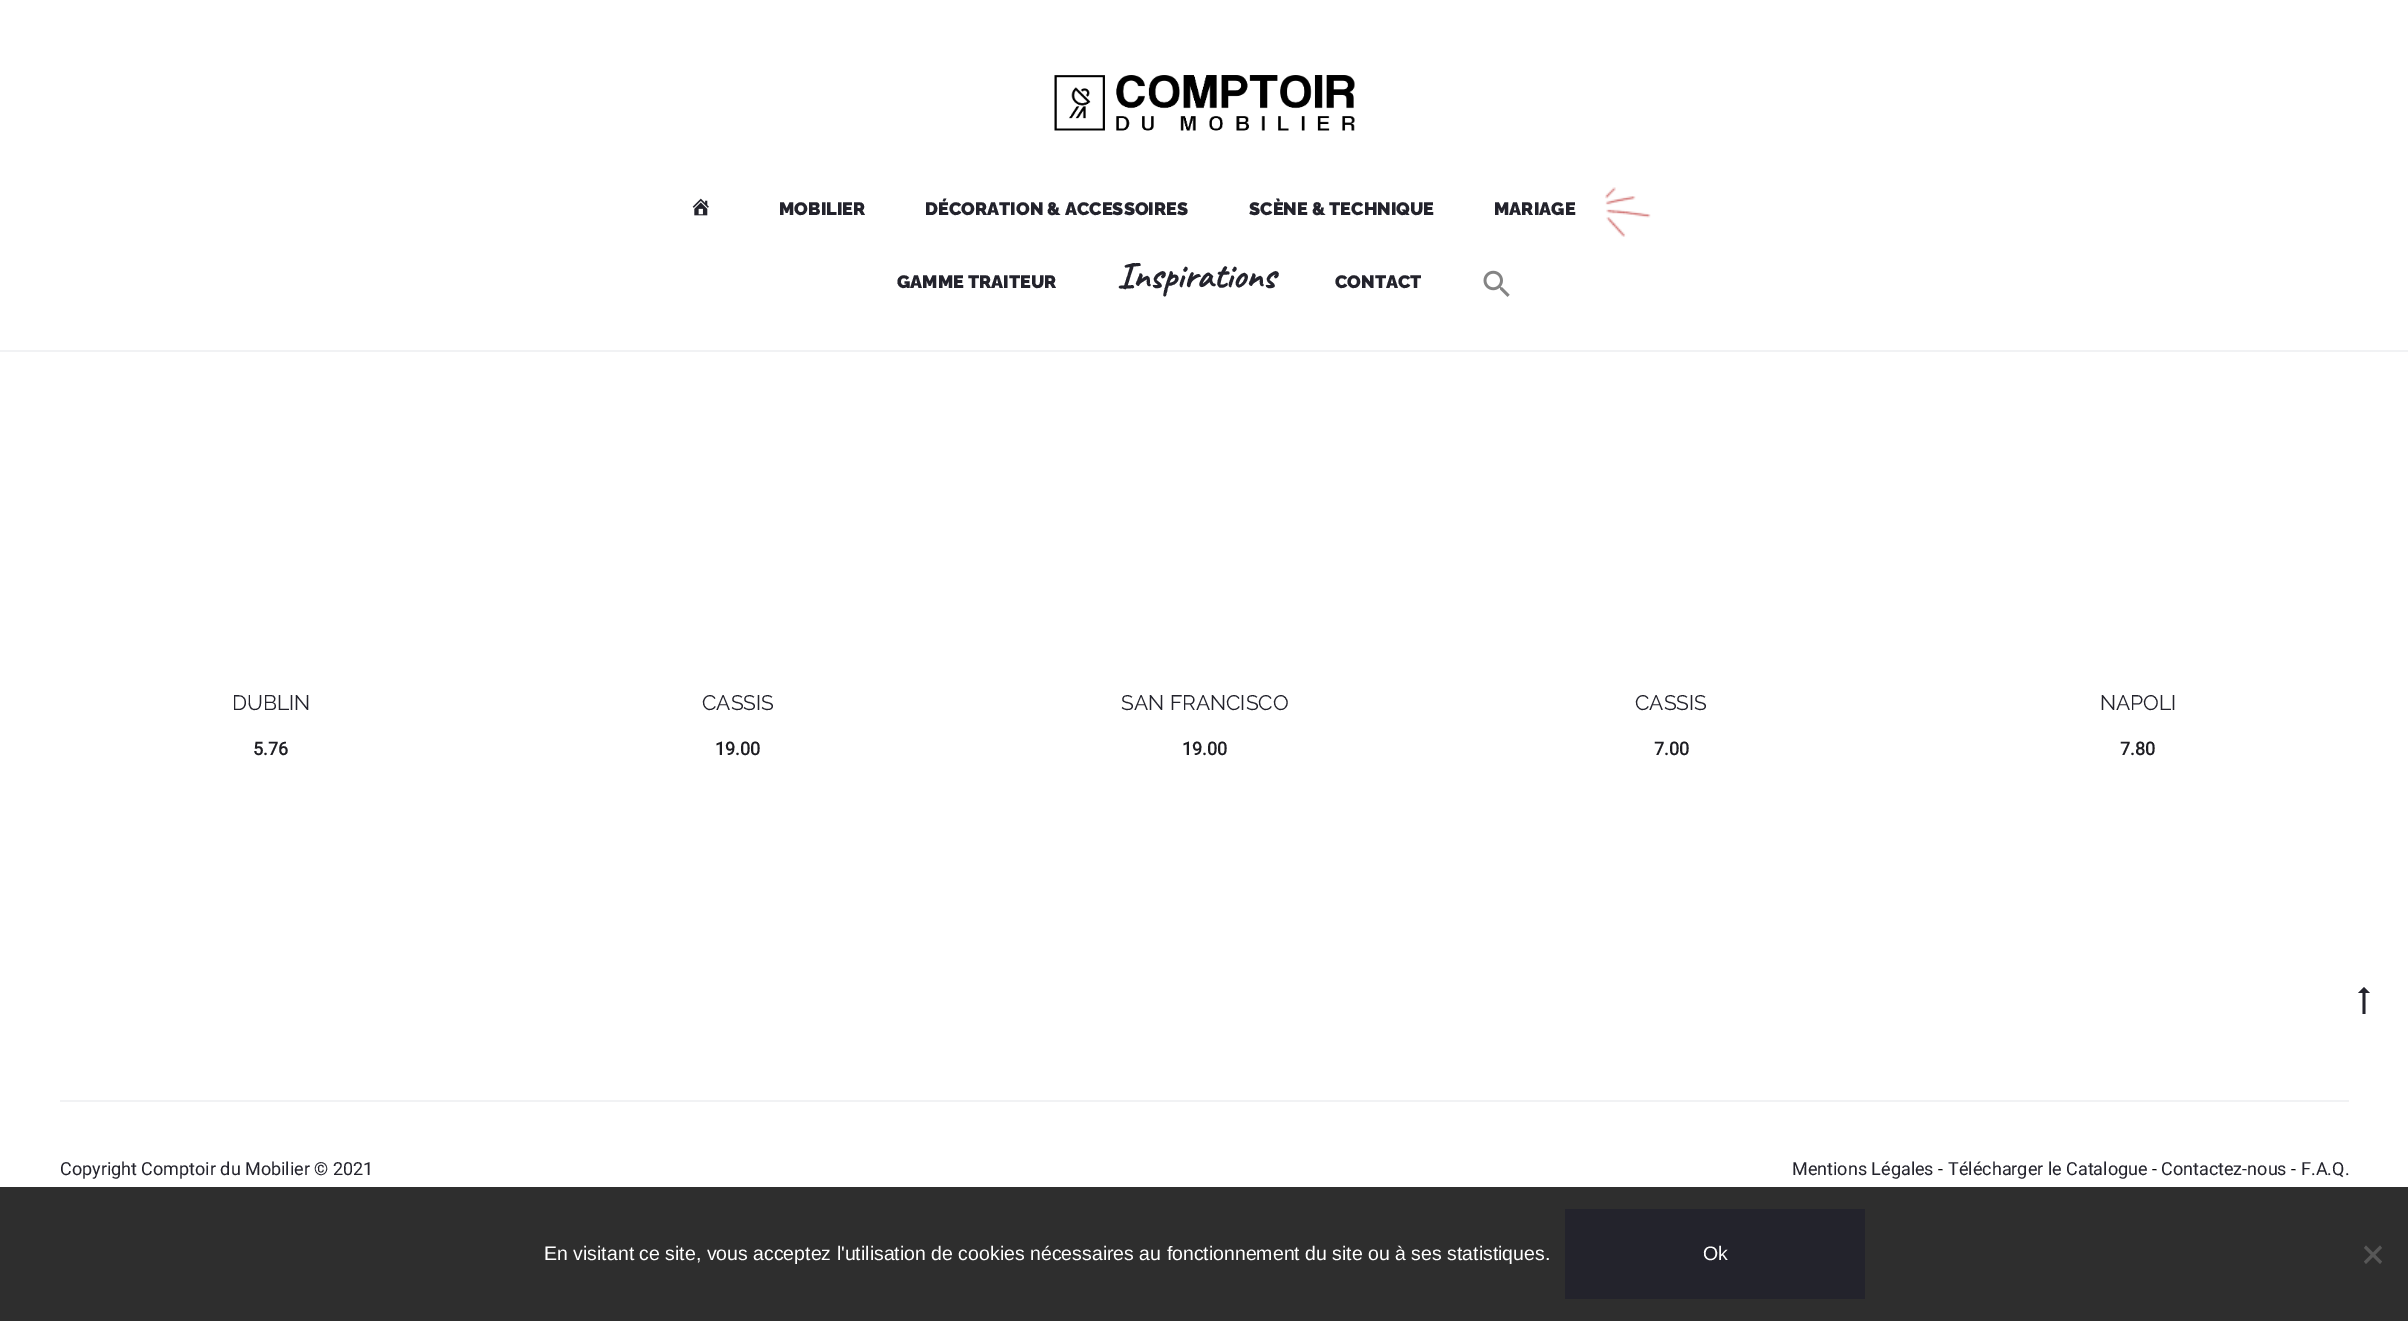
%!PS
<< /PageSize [2408 1321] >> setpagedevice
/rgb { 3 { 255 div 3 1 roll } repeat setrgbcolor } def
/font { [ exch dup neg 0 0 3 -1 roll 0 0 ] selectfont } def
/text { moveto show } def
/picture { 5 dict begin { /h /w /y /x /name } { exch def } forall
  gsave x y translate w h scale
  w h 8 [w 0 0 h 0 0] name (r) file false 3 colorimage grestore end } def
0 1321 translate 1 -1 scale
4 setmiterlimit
255 255 255 rgb
0 0 2408 1321 rectfill
241 242 244 rgb
0 350 2408 2 rectfill
(img_01.rgb) 1054 75 301 56 picture
(img_02.rgb) 692 198 17 18 picture
(img_03.rgb) 1605 187 46 50 picture
(img_04.rgb) 1483 270 27 27 picture
60 1100 2289 2 rectfill
35 35 44 rgb
2362.5 993 moveto 0 21 rlineto 3 0 rlineto 0 -21 rlineto 4.5 0 rlineto -6 -6 rlineto -6 6 rlineto closepath fill
46 46 46 rgb
0 1187 2408 134 rectfill
35 35 44 rgb
1565 1209 300 90 rectfill
87 87 87 rgb
2380 1245.5 moveto 2 2.5 rlineto -16 16 rlineto -2 -2.5 rlineto closepath fill
2364 1248 moveto 2 -2.5 rlineto 16 16 rlineto -2 2.5 rlineto closepath fill
/Raleway-Black 18 font
35 35 44 rgb
(MOBILIER) 779 215 text
(DÉCORATION & ACCESSOIRES) 925 215 text
(SCÈNE & TECHNIQUE) 1249 215 text
(MARIAGE) 1494 215 text
(GAMME TRAITEUR) 897 288 text
/Caveat-Bold 37.5 font
(Inspirations) 1117 288 text
/Raleway-Black 18 font
(CONTACT) 1335 288 text
/Raleway-Thin 21 font
(DUBLIN) 232 710 text
/Roboto-Bold 18 font
30 30 35 rgb
(5.76) 253 755 text
/Raleway-Thin 21 font
35 35 44 rgb
(CASSIS) 702 710 text
/Roboto-Bold 18 font
30 30 35 rgb
(19.00) 715 755 text
/Raleway-Thin 21 font
35 35 44 rgb
(SAN FRANCISCO) 1121 710 text
/Roboto-Bold 18 font
30 30 35 rgb
(19.00) 1182 755 text
/Raleway-Thin 21 font
35 35 44 rgb
(CASSIS) 1635 710 text
/Roboto-Bold 18 font
30 30 35 rgb
(7.00) 1654 755 text
/Raleway-Thin 21 font
35 35 44 rgb
(NAPOLI) 2100 710 text
/Roboto-Bold 18 font
30 30 35 rgb
(7.80) 2120 755 text
/Roboto-Regular 18 font
35 35 44 rgb
(Copyright Comptoir du Mobilier © 2021) 60 1175 text
(Mentions Légales) 1792 1175 text
10 9 9 rgb
(-) 1938 1175 text
35 35 44 rgb
(Télécharger le Catalogue) 1948 1175 text
10 9 9 rgb
(-) 2152 1175 text
35 35 44 rgb
(Contactez-nous) 2161 1175 text
10 9 9 rgb
(-) 2291 1175 text
35 35 44 rgb
(F.A.Q.) 2301 1175 text
/LiberationSans-Regular 19.5 font
255 255 255 rgb
(En visitant ce site, vous acceptez l'utilisation de cookies nécessaires au fonctionnement du site ou à ses statistiques.) 544 1260 text
(Ok) 1703 1260 text
showpage
